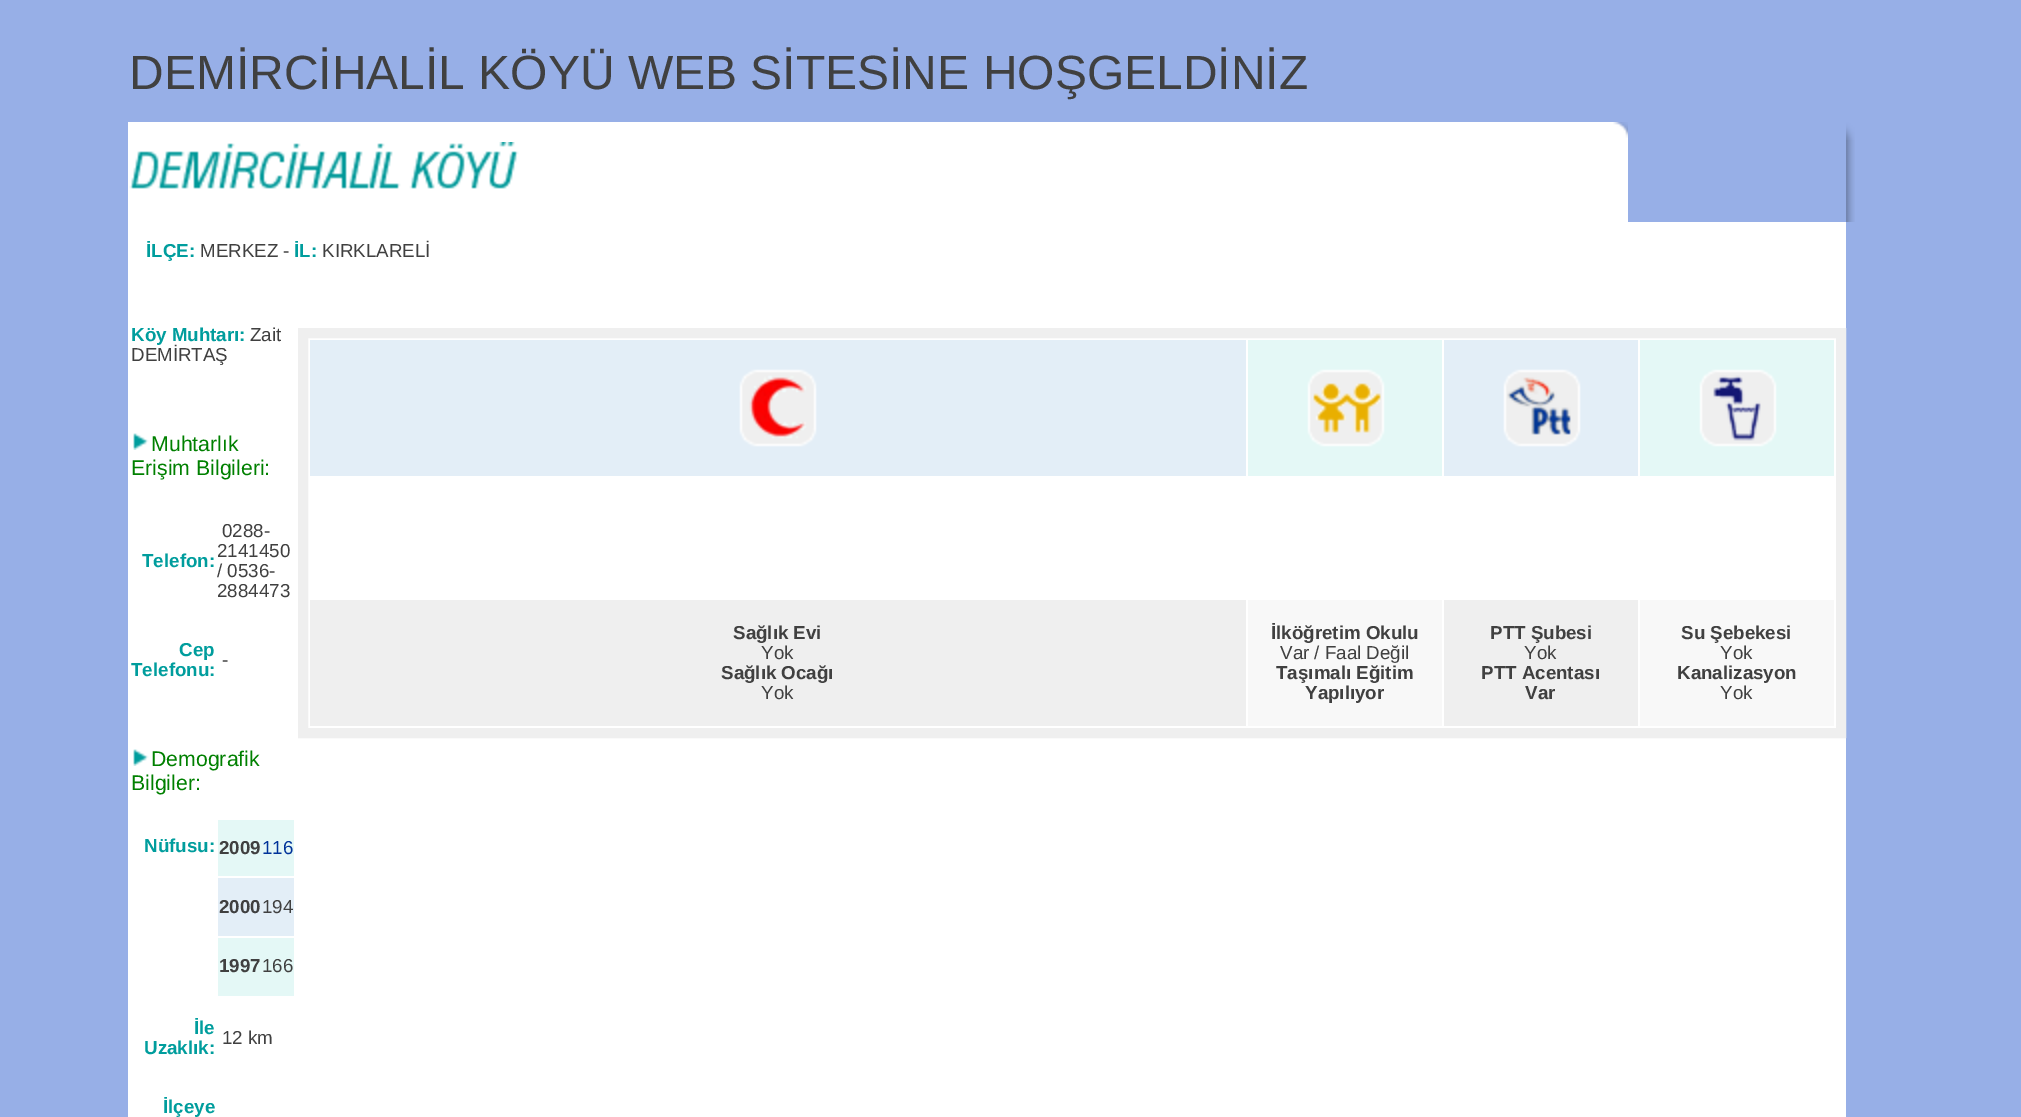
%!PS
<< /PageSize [2021 1117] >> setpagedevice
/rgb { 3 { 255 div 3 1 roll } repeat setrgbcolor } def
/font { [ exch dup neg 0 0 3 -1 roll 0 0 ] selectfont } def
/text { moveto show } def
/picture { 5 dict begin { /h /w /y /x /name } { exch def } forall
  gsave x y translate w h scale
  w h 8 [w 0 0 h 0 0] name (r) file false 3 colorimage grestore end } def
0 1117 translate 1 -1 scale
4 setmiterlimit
151 175 231 rgb
0 0 2021 1117 rectfill
255 255 255 rgb
128 122 1500 100 rectfill
(img_01.rgb) 1613 122 15 16 picture
(img_02.rgb) 129 142 390 47 picture
(img_03.rgb) 1846 140 9 82 picture
(img_04.rgb) 1846 122 9 18 picture
128 222 1718 895 rectfill
(img_05.rgb) 133 433 16 17 picture
(img_05.rgb) 133 749 16 17 picture
228 248 246 rgb
218 820 76 56 rectfill
227 238 247 rgb
218 878 76 58 rectfill
228 248 246 rgb
218 938 76 58 rectfill
239 239 239 rgb
10 setlinewidth
303 333 1538 400 rectstroke
227 238 247 rgb
310 340 936 136 rectfill
(img_06.rgb) 739 369 78 78 picture
228 248 246 rgb
1248 340 194 136 rectfill
(img_07.rgb) 1307 369 78 78 picture
227 238 247 rgb
1444 340 194 136 rectfill
(img_08.rgb) 1503 369 78 78 picture
228 248 246 rgb
1640 340 194 136 rectfill
(img_09.rgb) 1699 369 78 78 picture
239 239 239 rgb
310 600 936 126 rectfill
248 248 248 rgb
1248 600 194 126 rectfill
239 239 239 rgb
1444 600 194 126 rectfill
248 248 248 rgb
1640 600 194 126 rectfill
/LiberationSans-Regular 48 font
64 64 64 rgb
(DEMİRCİHALİL KÖYÜ WEB SİTESİNE HOŞGELDİNİZ) 129 89 text
/LiberationSans-Bold 18.75 font
0 157 157 rgb
(İLÇE:) 146 257 text
/LiberationSans-Regular 18.75 font
64 64 64 rgb
(MERKEZ -) 200 257 text
/LiberationSans-Bold 18.75 font
0 157 157 rgb
(İL:) 294 257 text
/LiberationSans-Regular 18.75 font
64 64 64 rgb
(KIRKLARELİ) 322 257 text
/LiberationSans-Bold 18.75 font
0 157 157 rgb
(Köy Muhtarı:) 131 341 text
/LiberationSans-Regular 18.75 font
64 64 64 rgb
(Zait) 250 341 text
(DEMİRTAŞ) 131 361 text
/LiberationSans-Regular 21.25 font
0 128 0 rgb
(Muhtarlık) 151 451 text
(Erişim Bilgileri:) 131 475 text
/LiberationSans-Bold 18.75 font
0 157 157 rgb
(Telefon:) 142 567 text
/LiberationSans-Regular 18.75 font
64 64 64 rgb
(0288-) 222 537 text
(2141450) 217 557 text
(/ 0536-) 217 577 text
(2884473) 217 597 text
/LiberationSans-Bold 18.75 font
0 157 157 rgb
(Cep) 179 656 text
(Telefonu:) 131 676 text
/LiberationSans-Regular 18.75 font
64 64 64 rgb
(-) 222 666 text
/LiberationSans-Regular 21.25 font
0 128 0 rgb
(Demografik) 151 766 text
(Bilgiler:) 131 790 text
/LiberationSans-Bold 18.75 font
0 157 157 rgb
(Nüfusu:) 144 852 text
64 64 64 rgb
(2009) 219 854 text
/LiberationSans-Regular 18.75 font
0 51 153 rgb
(116) 262 854 text
/LiberationSans-Bold 18.75 font
64 64 64 rgb
(2000) 219 913 text
/LiberationSans-Regular 18.75 font
(194) 262 913 text
/LiberationSans-Bold 18.75 font
(1997) 219 972 text
/LiberationSans-Regular 18.75 font
(166) 262 972 text
/LiberationSans-Bold 18.75 font
0 157 157 rgb
(İle) 194 1034 text
(Uzaklık:) 144 1054 text
/LiberationSans-Regular 18.75 font
64 64 64 rgb
(12 km) 222 1044 text
/LiberationSans-Bold 18.75 font
0 157 157 rgb
(İlçeye) 163 1113 text
64 64 64 rgb
(Sağlık Evi) 733 639 text
/LiberationSans-Regular 18.75 font
(Yok) 761 659 text
/LiberationSans-Bold 18.75 font
(Sağlık Ocağı) 721 679 text
/LiberationSans-Regular 18.75 font
(Yok) 761 699 text
/LiberationSans-Bold 18.75 font
(İlköğretim Okulu) 1271 639 text
/LiberationSans-Regular 18.75 font
(Var / Faal Değil) 1280 659 text
/LiberationSans-Bold 18.75 font
(Taşımalı Eğitim) 1276 679 text
(Yapılıyor) 1305 699 text
(PTT Şubesi) 1490 639 text
/LiberationSans-Regular 18.75 font
(Yok) 1524 659 text
/LiberationSans-Bold 18.75 font
(PTT Acentası) 1481 679 text
(Var) 1525 699 text
(Su Şebekesi) 1681 639 text
/LiberationSans-Regular 18.75 font
(Yok) 1720 659 text
/LiberationSans-Bold 18.75 font
(Kanalizasyon) 1677 679 text
/LiberationSans-Regular 18.75 font
(Yok) 1720 699 text
showpage
